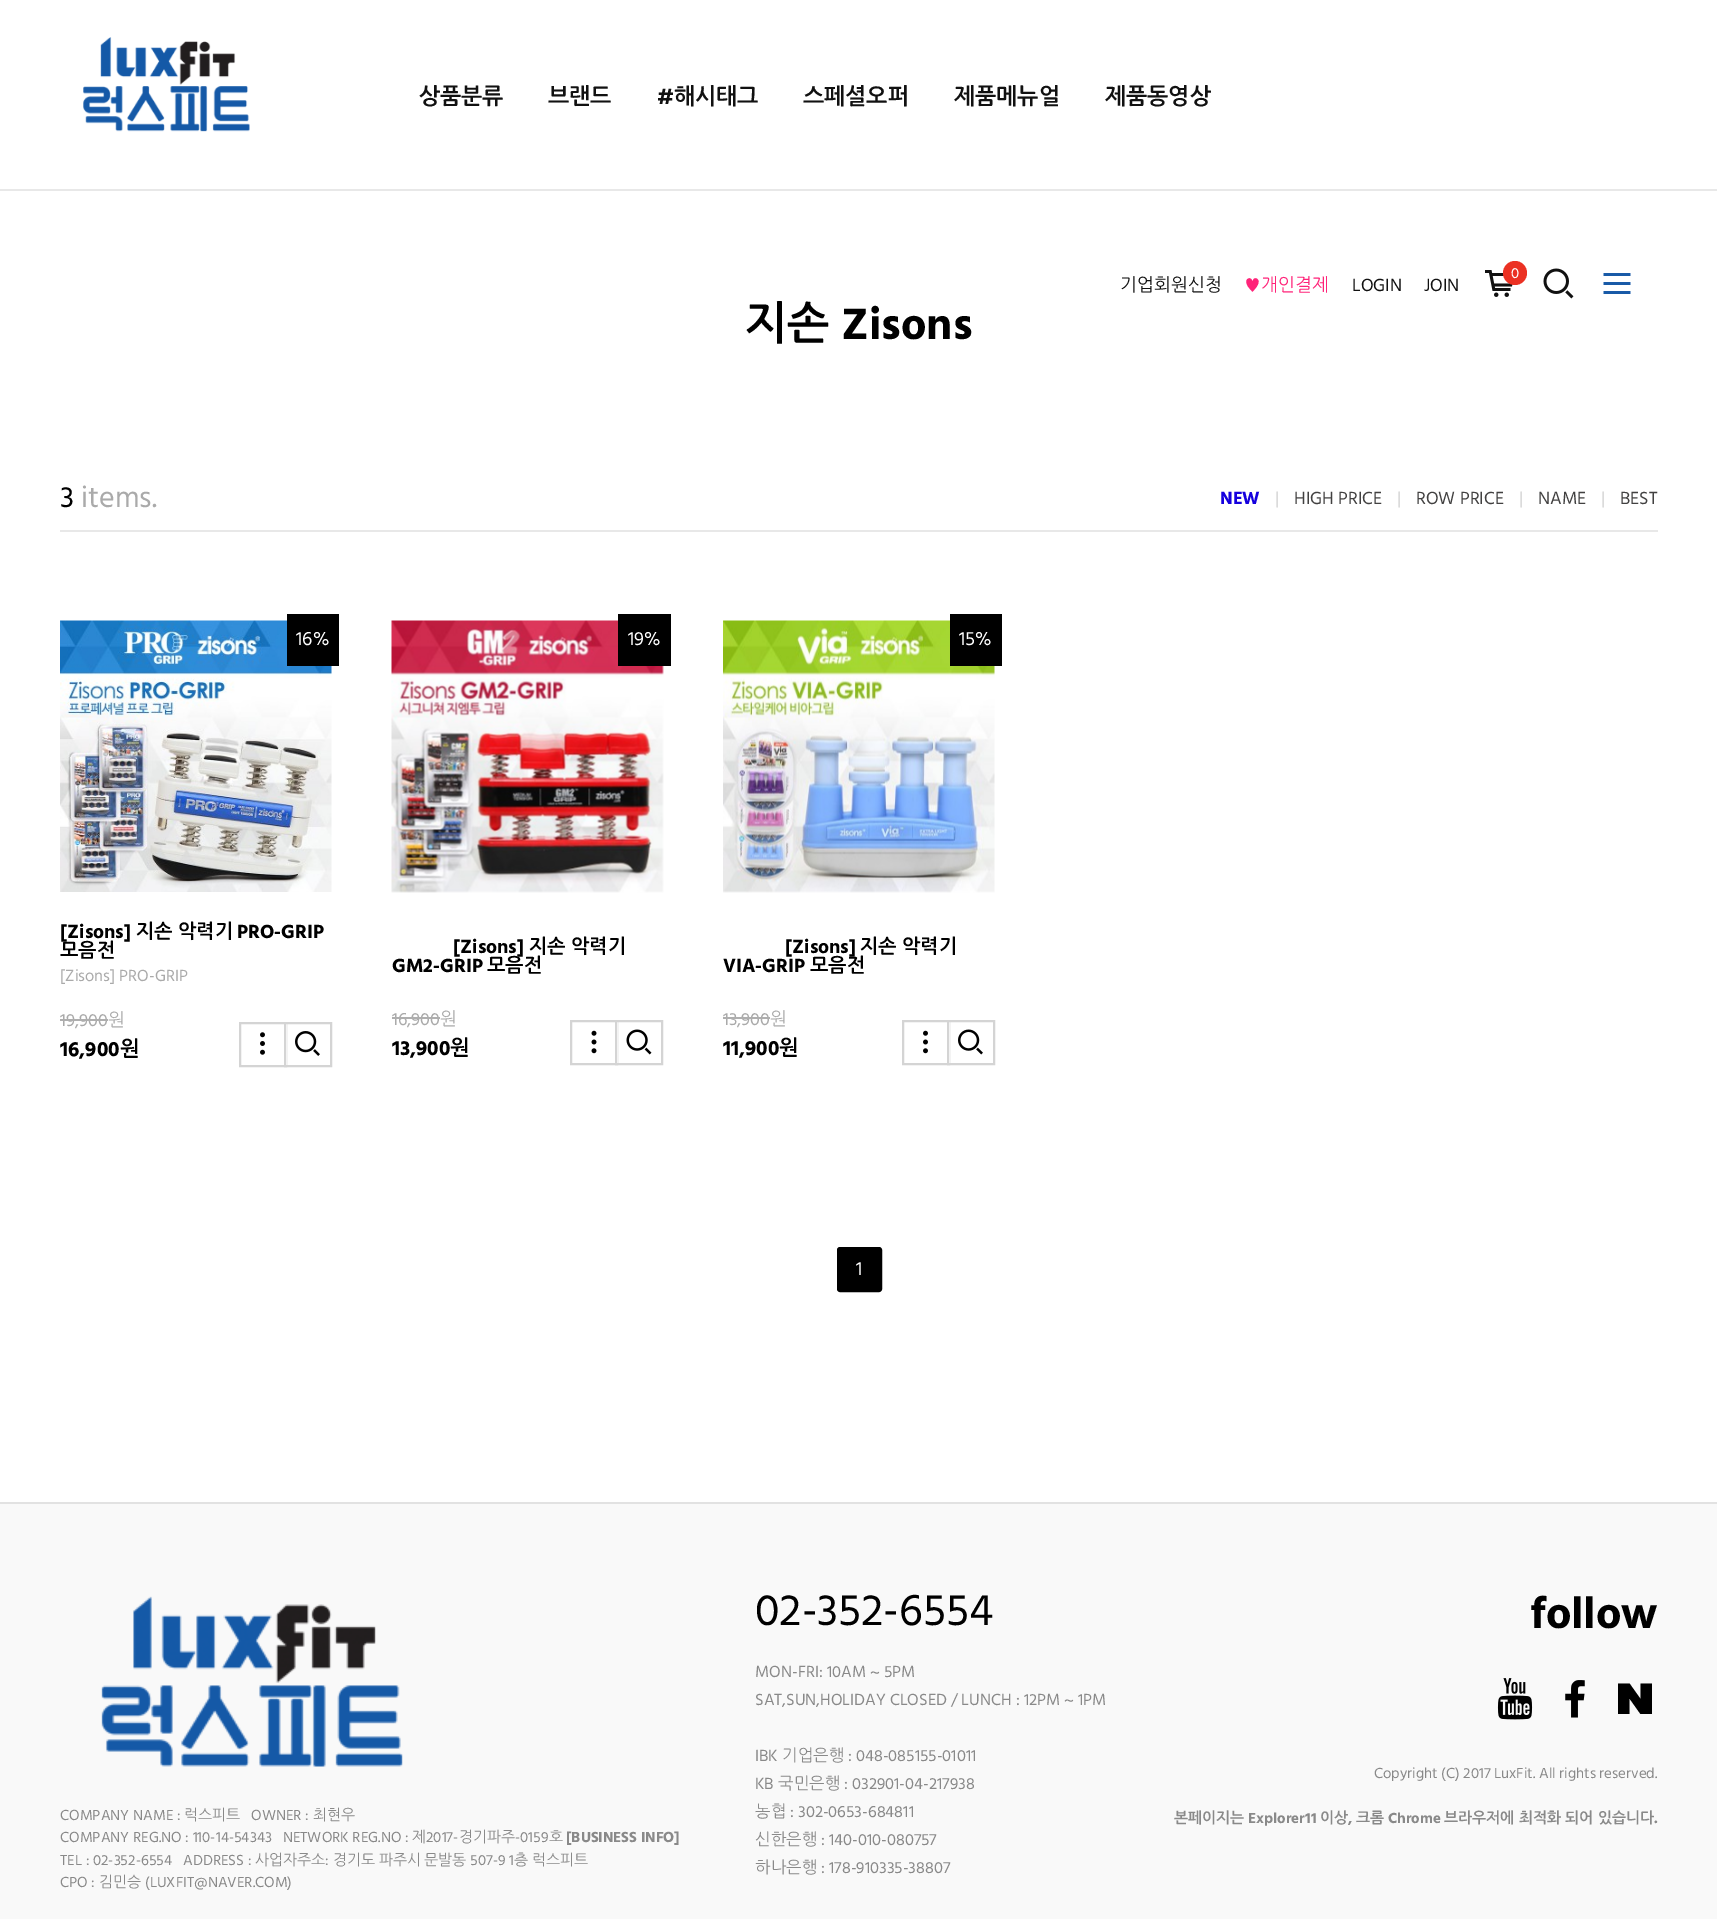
%!PS
<< /PageSize [1717 1919] >> setpagedevice
/rgb { 3 { 255 div 3 1 roll } repeat setrgbcolor } def
/font { [ exch dup neg 0 0 3 -1 roll 0 0 ] selectfont } def
/text { moveto show } def
/circle { newpath 0 360 arc closepath } def
/roundrect { 5 dict begin { /r /h /w /y /x } { exch def } forall
  x r add y moveto x w add y 2 copy h add r arct x w add y h add x 1 index r arct
  x y h add x y r arct x y 2 copy exch w add exch r arct closepath end } def
/picture { 5 dict begin { /h /w /y /x /name } { exch def } forall
  gsave x y translate w h scale
  w h 8 [w 0 0 h 0 0] name (r) file false 3 colorimage grestore end } def
0 1919 translate 1 -1 scale
4 setmiterlimit
255 255 255 rgb
0 0 1717 1919 rectfill
232 232 232 rgb
0 189 1717 2 rectfill
(img_01.rgb) 83 37 167 95 picture
(img_02.rgb) 1485 270 28 27 picture
235 49 35 rgb
1515 273 12 circle fill
(img_03.rgb) 1543 268 31 31 picture
(img_04.rgb) 1603 273 28 21 picture
232 232 232 rgb
60 530 1598 2 rectfill
(img_05.rgb) 60 620 272 272 picture
0 0 0 rgb
287 614 52 52 rectfill
212 212 212 rgb
2 setlinewidth
240 1023 46 43 rectstroke
(img_06.rgb) 260 1032 5 23 picture
255 255 255 rgb
286 1024 1 41 rectfill
212 212 212 rgb
285 1023 46 43 rectstroke
(img_07.rgb) 295 1031 25 25 picture
(img_08.rgb) 391 620 273 273 picture
0 0 0 rgb
618 614 53 52 rectfill
212 212 212 rgb
571 1021 46 43 rectstroke
(img_09.rgb) 591 1030 6 24 picture
255 255 255 rgb
617 1022 1 41 rectfill
212 212 212 rgb
616 1021 46 43 rectstroke
(img_10.rgb) 626 1029 26 26 picture
(img_11.rgb) 723 620 272 273 picture
0 0 0 rgb
950 614 52 52 rectfill
212 212 212 rgb
903 1021 46 43 rectstroke
(img_12.rgb) 923 1030 5 24 picture
255 255 255 rgb
949 1022 1 41 rectfill
212 212 212 rgb
948 1021 46 43 rectstroke
(img_13.rgb) 958 1029 25 26 picture
0 0 0 rgb
838 1248 43 43 2 roundrect gsave fill grestore
stroke
249 249 249 rgb
0 1504 1717 415 rectfill
226 226 226 rgb
0 1502 1717 2 rectfill
(img_14.rgb) 1497 1678 36 42 picture
(img_15.rgb) 1565 1680 20 38 picture
0 0 0 rgb
1640.5 1683.5 moveto 0 15.5 rlineto -11 -15.5 rlineto -11.5 0 rlineto 0 30.5 rlineto 11.5 0 rlineto 0 -15.5 rlineto 11 15.5 rlineto 11.5 0 rlineto 0 -30.5 rlineto closepath fill
(img_16.rgb) 101 1596 302 171 picture
/NanumGothic-Bold 22.5 font
17 17 17 rgb
(상품분류) 419 104 text
(브랜드) 548 104 text
/Hind-Bold 22.5 font
(#) 657 104 text
/NanumGothic-Bold 22.5 font
(해시태그) 674 104 text
(스페셜오퍼) 803 104 text
(제품메뉴얼) 954 104 text
(제품동영상) 1105 104 text
/NanumGothic-Regular 18 font
(기업회원신청) 1120 291 text
255 35 121 rgb
(♥개인결제) 1244 291 text
/Hind-Regular 18 font
17 17 17 rgb
(LOGIN) 1352 291 text
(JOIN) 1424 291 text
/Hind-Regular 15 font
255 255 255 rgb
(0) 1511 278 text
/NanumGothic-Bold 45 font
0 0 0 rgb
(지손) 745 339 text
/Hind-Bold 45 font
(Zisons) 841 339 text
/Hind-Regular 30 font
(3) 60 507 text
170 170 170 rgb
(items.) 81 507 text
/Hind-Bold 18 font
21 0 222 rgb
(NEW) 1220 504 text
/Hind-Regular 18 font
207 207 207 rgb
(|) 1275 504 text
66 65 65 rgb
(HIGH PRICE) 1294 504 text
207 207 207 rgb
(|) 1397 504 text
66 65 65 rgb
(ROW PRICE) 1416 504 text
207 207 207 rgb
(|) 1519 504 text
66 65 65 rgb
(NAME) 1538 504 text
207 207 207 rgb
(|) 1601 504 text
66 65 65 rgb
(BEST) 1620 504 text
/Hind-Regular 19.5 font
255 255 255 rgb
(16%) 296 645 text
/Hind-Bold 19.5 font
0 0 0 rgb
([Zisons]) 60 938 text
/NanumGothic-Bold 19.5 font
(지손 악력기) 136 938 text
/Hind-Bold 19.5 font
(PRO-GRIP) 237 938 text
/NanumGothic-Bold 19.5 font
(모음전) 60 957 text
/Hind-Regular 16.5 font
170 170 170 rgb
([Zisons] PRO-GRIP) 60 981 text
/Hind-Regular 18 font
(19,900) 60 1026 text
174 174 174 rgb
60 1019 48 2 rectfill
/NanumGothic-Regular 18 font
170 170 170 rgb
(원) 108 1026 text
/Hind-Bold 21 font
0 0 0 rgb
(16,900) 60 1056 text
/NanumGothic-Bold 21 font
(원) 120 1056 text
/Hind-Regular 19.5 font
255 255 255 rgb
(19%) 628 645 text
/Hind-Bold 19.5 font
0 0 0 rgb
([Zisons]) 453 953 text
/NanumGothic-Bold 19.5 font
(지손 악력기) 529 953 text
/Hind-Bold 19.5 font
(GM2-GRIP) 392 972 text
/NanumGothic-Bold 19.5 font
(모음전) 487 972 text
/Hind-Regular 18 font
170 170 170 rgb
(16,900) 392 1025 text
174 174 174 rgb
392 1017 48 2 rectfill
/NanumGothic-Regular 18 font
170 170 170 rgb
(원) 440 1025 text
/Hind-Bold 21 font
0 0 0 rgb
(13,900) 392 1055 text
/NanumGothic-Bold 21 font
(원) 450 1055 text
/Hind-Regular 19.5 font
255 255 255 rgb
(15%) 959 645 text
/Hind-Bold 19.5 font
0 0 0 rgb
([Zisons]) 785 953 text
/NanumGothic-Bold 19.5 font
(지손 악력기) 860 953 text
/Hind-Bold 19.5 font
(VIA-GRIP) 723 972 text
/NanumGothic-Bold 19.5 font
(모음전) 810 972 text
/Hind-Regular 18 font
170 170 170 rgb
(13,900) 723 1025 text
174 174 174 rgb
723 1017 47 2 rectfill
/NanumGothic-Regular 18 font
170 170 170 rgb
(원) 770 1025 text
/Hind-Bold 21 font
0 0 0 rgb
(11,900) 723 1055 text
/NanumGothic-Bold 21 font
(원) 779 1055 text
/Hind-Regular 19.5 font
255 255 255 rgb
(1) 856 1275 text
/Hind-Regular 45 font
0 0 0 rgb
(02-352-6554) 755 1625 text
/Hind-Regular 16.5 font
137 137 137 rgb
(MON-FRI: 10AM ~ 5PM) 755 1677 text
(SAT,SUN,HOLIDAY CLOSED / LUNCH : 12PM ~ 1PM) 755 1705 text
(IBK) 755 1761 text
/NanumGothic-Regular 16.5 font
(기업은행) 782 1761 text
/Hind-Regular 16.5 font
(: 048-085155-01011) 848 1761 text
(KB) 755 1789 text
/NanumGothic-Regular 16.5 font
(국민은행) 778 1789 text
/Hind-Regular 16.5 font
(: 032901-04-217938) 844 1789 text
/NanumGothic-Regular 16.5 font
(농협) 755 1817 text
/Hind-Regular 16.5 font
(: 302-0653-684811) 790 1817 text
/NanumGothic-Regular 16.5 font
(신한은행) 755 1845 text
/Hind-Regular 16.5 font
(: 140-010-080757) 821 1845 text
/NanumGothic-Regular 16.5 font
(하나은행) 755 1873 text
/Hind-Regular 16.5 font
(: 178-910335-38807) 821 1873 text
/Hind-Bold 45 font
0 0 0 rgb
(follow) 1530 1628 text
/Hind-Regular 15 font
137 137 137 rgb
(Copyright \(C\) 2017 LuxFit. All rights reserved.) 1374 1778 text
/NanumGothic-Bold 15 font
(본페이지는) 1174 1823 text
/Hind-Bold 15 font
(Explorer11) 1248 1823 text
/NanumGothic-Bold 15 font
(이상) 1320 1823 text
/Hind-Bold 15 font
(,) 1348 1823 text
/NanumGothic-Bold 15 font
(크롬) 1356 1823 text
/Hind-Bold 15 font
(Chrome) 1388 1823 text
/NanumGothic-Bold 15 font
(브라우저에 최적화 되어 있습니다) 1444 1823 text
/Hind-Bold 15 font
(.) 1654 1823 text
/Hind-Regular 15 font
(COMPANY NAME :) 60 1820 text
/NanumGothic-Regular 15 font
(럭스피트) 184 1820 text
/Hind-Regular 15 font
(OWNER :) 251 1820 text
/NanumGothic-Regular 15 font
(최현우) 313 1820 text
/Hind-Regular 15 font
(COMPANY REG.NO : 110-14-54343   NETWORK REG.NO :) 60 1842 text
/NanumGothic-Regular 15 font
(제) 412 1842 text
/Hind-Regular 15 font
(2017-) 426 1842 text
/NanumGothic-Regular 15 font
(경기파주) 459 1842 text
/Hind-Regular 15 font
(-0159) 515 1842 text
/NanumGothic-Regular 15 font
(호) 549 1842 text
/Hind-Bold 15 font
([BUSINESS INFO]) 566 1842 text
/Hind-Regular 15 font
(TEL : 02-352-6554   ADDRESS :) 60 1865 text
/NanumGothic-Regular 15 font
(사업자주소) 255 1865 text
/Hind-Regular 15 font
(:) 325 1865 text
/NanumGothic-Regular 15 font
(경기도) 333 1865 text
(파주시) 379 1865 text
(문발동) 424 1865 text
/Hind-Regular 15 font
(507-9 1) 470 1865 text
/NanumGothic-Regular 15 font
(층) 514 1865 text
(럭스피트) 532 1865 text
/Hind-Regular 15 font
(CPO :) 60 1887 text
/NanumGothic-Regular 15 font
(김민승) 99 1887 text
/Hind-Regular 15 font
(\(LUXFIT@NAVER.COM\)) 145 1887 text
showpage
